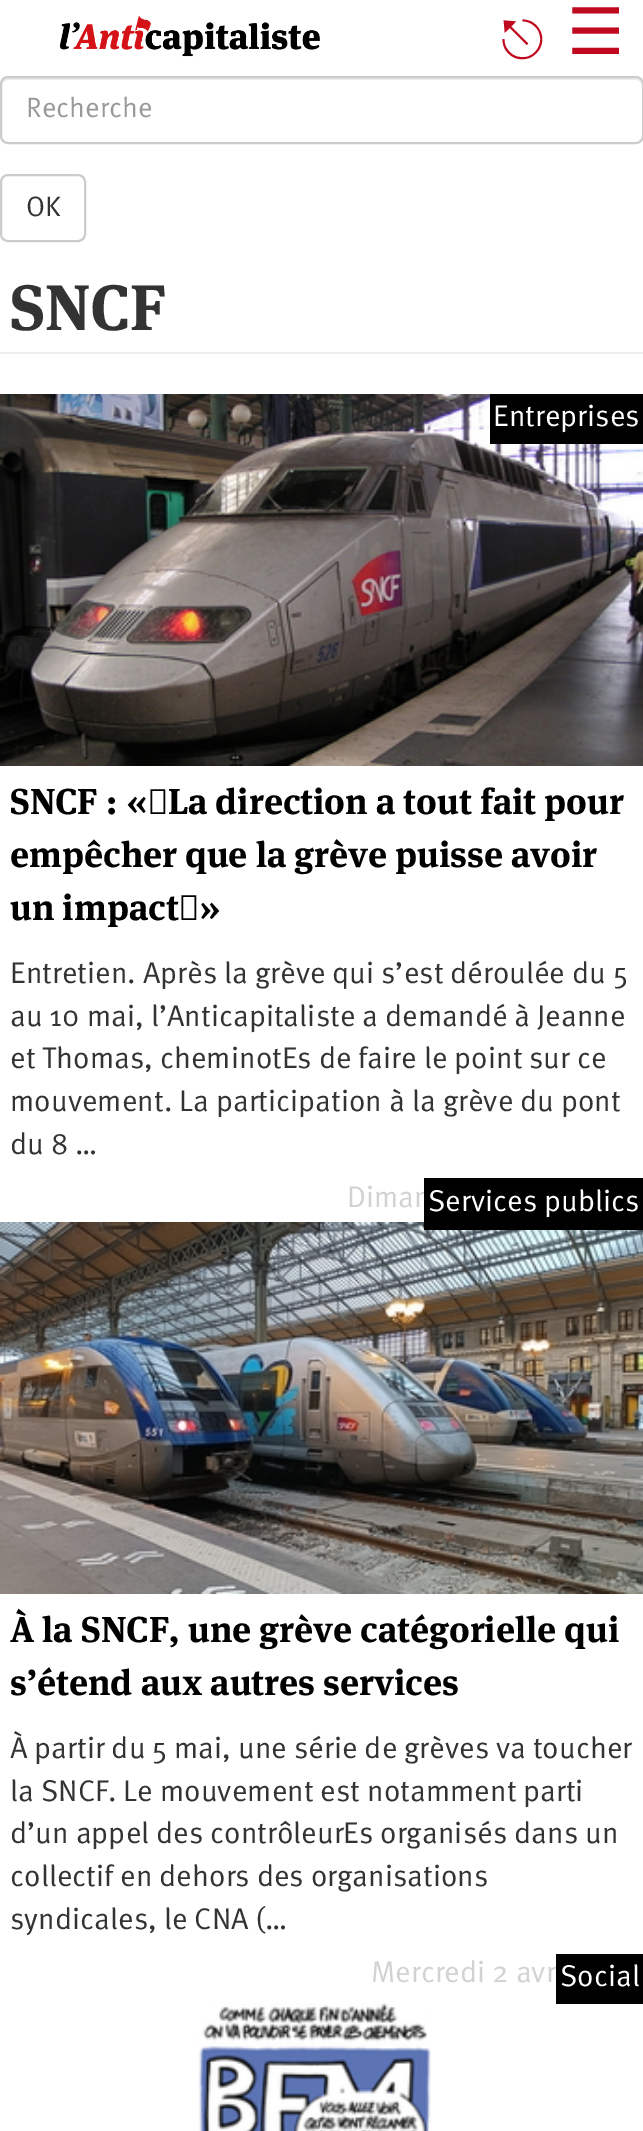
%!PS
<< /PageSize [643 2131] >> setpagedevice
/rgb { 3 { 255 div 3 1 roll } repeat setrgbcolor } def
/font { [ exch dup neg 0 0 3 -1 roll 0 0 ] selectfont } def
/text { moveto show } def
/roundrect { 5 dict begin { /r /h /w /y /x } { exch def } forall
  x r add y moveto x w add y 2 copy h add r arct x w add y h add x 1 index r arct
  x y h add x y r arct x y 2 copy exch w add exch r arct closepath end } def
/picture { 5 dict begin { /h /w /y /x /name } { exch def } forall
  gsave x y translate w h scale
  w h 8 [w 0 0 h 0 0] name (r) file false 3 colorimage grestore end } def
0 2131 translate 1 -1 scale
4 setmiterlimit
255 255 255 rgb
0 0 643 2131 rectfill
(img_01.rgb) 60 16 260 41 picture
236 236 236 rgb
8 80 moveto 628 0 rlineto 3 0 6 3 6 6 rcurveto 0 -2 rlineto 0 -3 -3 -6 -6 -6 rcurveto -628 0 rlineto -3 0 -6 3 -6 6 rcurveto 0 2 rlineto 0 -3 3 -6 6 -6 rcurveto closepath fill
204 204 204 rgb
2 setlinewidth
1 77 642 66 7 roundrect stroke
1 175 84 66 7 roundrect stroke
238 238 238 rgb
0 352 643 2 rectfill
(img_02.rgb) 0 394 643 372 picture
0 0 0 rgb
490 394 153 50 rectfill
(img_03.rgb) 0 1222 643 372 picture
556 1954 87 50 rectfill
(img_04.rgb) 198 2003 233 128 picture
/FreeSerif-Regular 54 font
192 8 31 rgb
(⎋) 501 58 text
/DejaVuSans-Regular 64 font
(☰) 567 54 text
/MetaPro-Regular 28 font
153 153 153 rgb
(Recherche) 26 117 text
51 51 51 rgb
(OK) 26 216 text
/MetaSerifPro-Bold 64 font
(SNCF) 10 330 text
/MetaPro-Regular 30 font
255 255 255 rgb
(Entreprises) 493 426 text
/MetaSerifPro-Bold 36 font
0 0 0 rgb
(SNCF : « La direction a tout fait pour) 10 814 text
(empêcher que la grève puisse avoir) 10 867 text
(un impact ») 10 920 text
/MetaPro-Regular 30 font
51 51 51 rgb
(Entretien. Après la grève qui s’est déroulée du 5) 10 983 text
(au 10 mai, l’Anticapitaliste a demandé à Jeanne) 10 1026 text
(et Thomas, cheminotEs de faire le point sur ce) 10 1068 text
(mouvement. La participation à la grève du pont) 10 1111 text
(du 8 …) 10 1154 text
210 210 210 rgb
(Diman) 347 1207 text
0 0 0 rgb
424 1178 219 52 rectfill
255 255 255 rgb
(Services publics) 428 1211 text
/MetaSerifPro-Bold 36 font
0 0 0 rgb
(À la SNCF, une grève catégorielle qui) 10 1642 text
(s’étend aux autres services) 10 1695 text
/MetaPro-Regular 30 font
51 51 51 rgb
(À partir du 5 mai, une série de grèves va toucher) 10 1758 text
(la SNCF. Le mouvement est notamment parti) 10 1801 text
(d’un appel des contrôleurEs organisés dans un) 10 1843 text
(collectif en dehors des organisations) 10 1886 text
(syndicales, le CNA \(…) 10 1929 text
210 210 210 rgb
(Mercredi 2 avr) 371 1982 text
255 255 255 rgb
(Social) 560 1986 text
showpage
